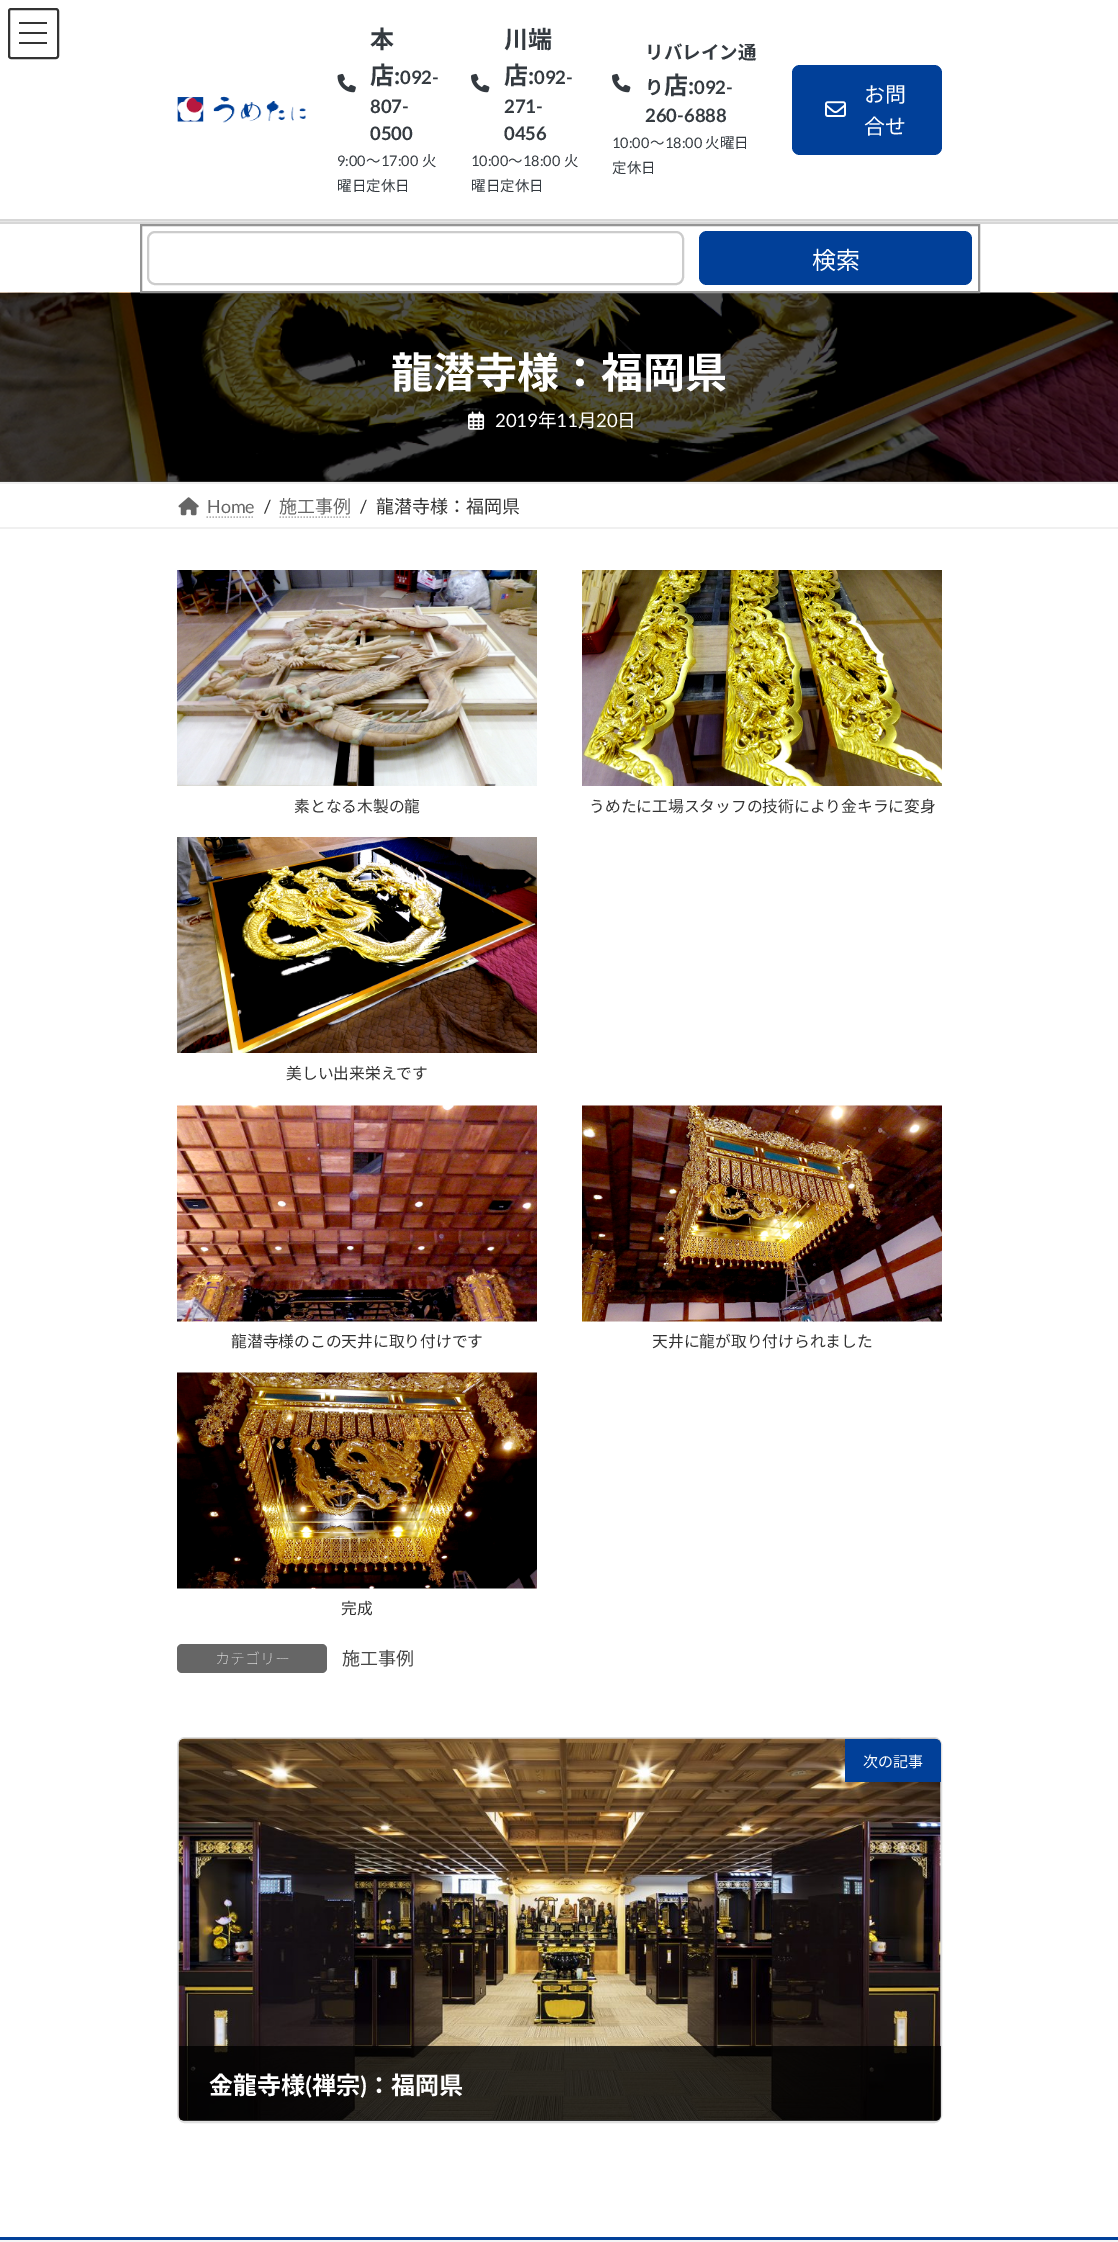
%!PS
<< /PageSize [1118 2242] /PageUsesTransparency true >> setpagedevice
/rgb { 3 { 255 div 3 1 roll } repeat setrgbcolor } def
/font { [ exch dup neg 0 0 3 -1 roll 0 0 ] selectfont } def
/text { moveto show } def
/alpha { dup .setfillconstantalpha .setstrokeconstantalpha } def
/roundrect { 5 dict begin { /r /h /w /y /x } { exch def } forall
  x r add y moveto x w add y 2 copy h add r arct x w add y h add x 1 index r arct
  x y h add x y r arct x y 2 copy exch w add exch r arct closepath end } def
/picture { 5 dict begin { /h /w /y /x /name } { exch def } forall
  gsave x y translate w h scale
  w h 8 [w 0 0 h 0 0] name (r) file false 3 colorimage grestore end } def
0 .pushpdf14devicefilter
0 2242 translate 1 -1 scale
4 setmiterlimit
255 255 255 rgb
0 0 1118 2242 rectfill
77 77 77 rgb
0 481 1118 1 rectfill
51 51 51 rgb
19 22 28 2 rectfill
19 32 28 2 rectfill
19 42 28 2 rectfill
2 setlinewidth
9 9 49 49 2 roundrect stroke
(img_01.rgb) 177 96 129 27 picture
(img_02.rgb) 337 73 19 20 picture
(img_03.rgb) 471 73 19 20 picture
(img_03.rgb) 612 73 19 20 picture
1 64 153 rgb
792 65 150 90 8 roundrect fill
(img_04.rgb) 825 101 21 16 picture
215 215 215 rgb
0 219 1118 2 rectfill
230 230 230 rgb
0 221 1118 1 rectfill
215 215 215 rgb
0 222 1118 2 rectfill
(img_05.rgb) 0 292 1118 190 picture
148 148 148 rgb
141 225 838 67 rectstroke
204 204 204 rgb
148 232 535 52 7 roundrect stroke
1 64 153 rgb
699 231 273 54 8 roundrect fill
(img_06.rgb) 468 411 17 19 picture
240 240 240 rgb
0 482 1118 2 rectfill
0 527 1118 2 rectfill
(img_07.rgb) 178 497 21 19 picture
179 179 179 rgb
1.5 setlinewidth
[1.5 1.5] 0 setdash
206.5 517 moveto 48 0 rlineto stroke
279.5 517 moveto 72 0 rlineto stroke
(img_08.rgb) 177 570 360 216 picture
(img_09.rgb) 582 570 360 216 picture
(img_10.rgb) 177 837 360 216 picture
(img_11.rgb) 177 1105 360 217 picture
(img_12.rgb) 582 1105 360 217 picture
(img_13.rgb) 177 1372 360 217 picture
102 102 102 rgb
177 1644 150 29 5 roundrect fill
223 223 223 rgb
2 setlinewidth
[] 0 setdash
178 1738 763 384 7 roundrect stroke
(img_14.rgb) 178 1738 763 383 picture
gsave
179 1739 762 382 6 roundrect clip newpath
229 229 229 rgb
179 2120 762 1 rectfill
grestore
1 64 153 rgb
845 1739 moveto 90 0 rlineto 3.5 0 6 2.5 6 6 rcurveto 0 37 rlineto -96 0 rlineto closepath fill
0.8 alpha
0 0 0 rgb
179 2046 moveto 762 0 rlineto 0 69 rlineto 0 3.5 -2.5 6 -6 6 rcurveto -750 0 rlineto -3.5 0 -6 -2.5 -6 -6 rcurveto closepath fill
1 alpha
245 245 245 rgb
0 2240 1118 2 rectfill
1 64 153 rgb
0 2237 1118 3 rectfill
/NotoSansJP-Bold 24 font
52 58 64 rgb
(本) 370 48 text
(店) 370 84 text
/Lato-Bold 24 font
(:) 394 84 text
/Lato-Bold 18.5 font
(092-) 400 84 text
(807-) 370 113 text
(0500) 370 140 text
/Lato-Regular 14.5 font
(9:00) 337 166 text
/NotoSansJP-Regular 14.5 font
(〜) 366 166 text
/Lato-Regular 14.5 font
(17:00) 381 166 text
/NotoSansJP-Regular 14.5 font
(火) 422 166 text
(曜日定休日) 337 191 text
/NotoSansJP-Bold 24 font
(川端) 504 48 text
(店) 504 84 text
/Lato-Bold 24 font
(:) 528 84 text
/Lato-Bold 18.5 font
(092-) 534 84 text
(271-) 504 113 text
(0456) 504 140 text
/Lato-Regular 14.5 font
(10:00) 471 166 text
/NotoSansJP-Regular 14.5 font
(〜) 508 166 text
/Lato-Regular 14.5 font
(18:00) 523 166 text
/NotoSansJP-Regular 14.5 font
(火) 564 166 text
(曜日定休日) 471 191 text
/NotoSansJP-Bold 18.5 font
(リバレイン通) 645 59 text
(り) 645 94 text
/NotoSansJP-Bold 24 font
(店) 664 94 text
/Lato-Bold 24 font
(:) 688 94 text
/Lato-Bold 18.5 font
(092-) 694 94 text
(260-6888) 645 122 text
/Lato-Regular 14.5 font
(10:00) 612 148 text
/NotoSansJP-Regular 14.5 font
(〜) 650 148 text
/Lato-Regular 14.5 font
(18:00) 665 148 text
/NotoSansJP-Regular 14.5 font
(火曜日) 705 148 text
(定休日) 612 173 text
/NotoSansJP-Regular 21 font
255 255 255 rgb
(お問) 864 102 text
(合せ) 864 134 text
/NotoSansJP-Regular 24 font
(検索) 812 269 text
/NotoSansJP-Bold 42 font
(龍潜寺様：福岡県) 391 388 text
/Lato-Regular 18.5 font
(2019) 495 427 text
/NotoSansJP-Regular 18.5 font
(年) 538 427 text
/Lato-Regular 18.5 font
(11) 556 427 text
/NotoSansJP-Regular 18.5 font
(月) 578 427 text
/Lato-Regular 18.5 font
(20) 596 427 text
/NotoSansJP-Regular 18.5 font
(日) 617 427 text
/Lato-Regular 18 font
102 102 102 rgb
(Home) 207 513 text
51 51 51 rgb
(/) 264 513 text
/NotoSansJP-Regular 18 font
102 102 102 rgb
(施工事例) 279 513 text
/Lato-Regular 18 font
51 51 51 rgb
(/) 360 513 text
/NotoSansJP-Regular 18 font
(龍潜寺様：福岡県) 376 513 text
/NotoSansJP-Regular 15.75 font
(素となる木製の龍) 294 812 text
(うめたに工場スタッフの技術により金キラに変身) 589 812 text
(美しい出来栄えです) 286 1079 text
(龍潜寺様のこの天井に取り付けです) 231 1347 text
(天井に龍が取り付けられました) 652 1347 text
(完成) 341 1614 text
/NotoSansJP-Thin 15 font
255 255 255 rgb
(カテゴリー) 215 1664 text
/NotoSansJP-Regular 18 font
70 70 70 rgb
(施工事例) 342 1665 text
/NotoSansJP-Regular 15 font
255 255 255 rgb
(次の記事) 863 1767 text
/NotoSansJP-Bold 24 font
(金龍寺様) 209 2094 text
/Lato-Bold 24 font
(\() 305 2094 text
/NotoSansJP-Bold 24 font
(禅宗) 312 2094 text
/Lato-Bold 24 font
(\)) 360 2094 text
/NotoSansJP-Bold 24 font
(：福岡県) 367 2094 text
.poppdf14devicefilter showpage
